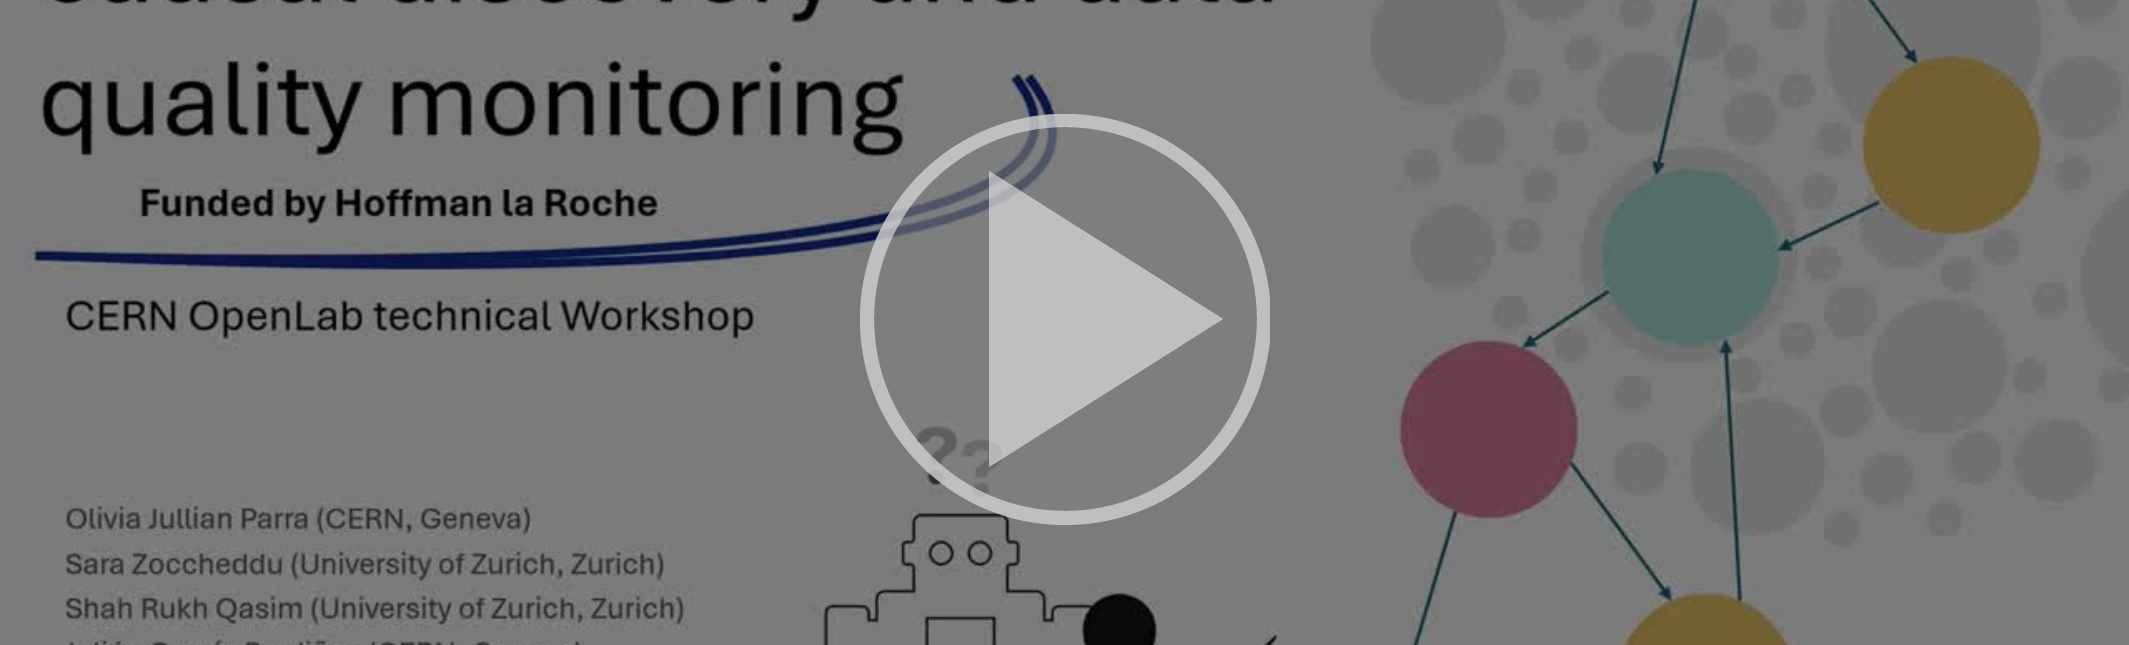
%!PS
<< /PageSize [2129 645] /PageUsesTransparency true >> setpagedevice
/rgb { 3 { 255 div 3 1 roll } repeat setrgbcolor } def
/alpha { dup .setfillconstantalpha .setstrokeconstantalpha } def
/circle { newpath 0 360 arc closepath } def
/picture { 5 dict begin { /h /w /y /x /name } { exch def } forall
  gsave x y translate w h scale
  w h 8 [w 0 0 h 0 0] name (r) file false 3 colorimage grestore end } def
0 .pushpdf14devicefilter
0 645 translate 1 -1 scale
4 setmiterlimit
255 255 255 rgb
0 0 2129 645 rectfill
(img_01.rgb) 0 0 2129 645 picture
gsave
860 114 410 411 rectclip
0.6 alpha
128 128 128 rgb
1065.5 319 205.5 circle fill
235 235 235 rgb
1065 114 moveto 114 0 206 92 206 205 rcurveto 0 114 -92 206 -206 206 rcurveto -113 0 -205 -92 -205 -206 rcurveto 0 -113 92 -205 205 -205 rcurveto closepath 1065 127 moveto 106 0 192 86 192 192 rcurveto 0 106 -86 192 -192 192 rcurveto -105 0 -191 -86 -191 -192 rcurveto 0 -106 86 -192 191 -192 rcurveto closepath eofill
grestore
0.6 alpha
235 235 235 rgb
1223 319 moveto -234 148 rlineto 0 -296 rlineto closepath eofill
.poppdf14devicefilter showpage
